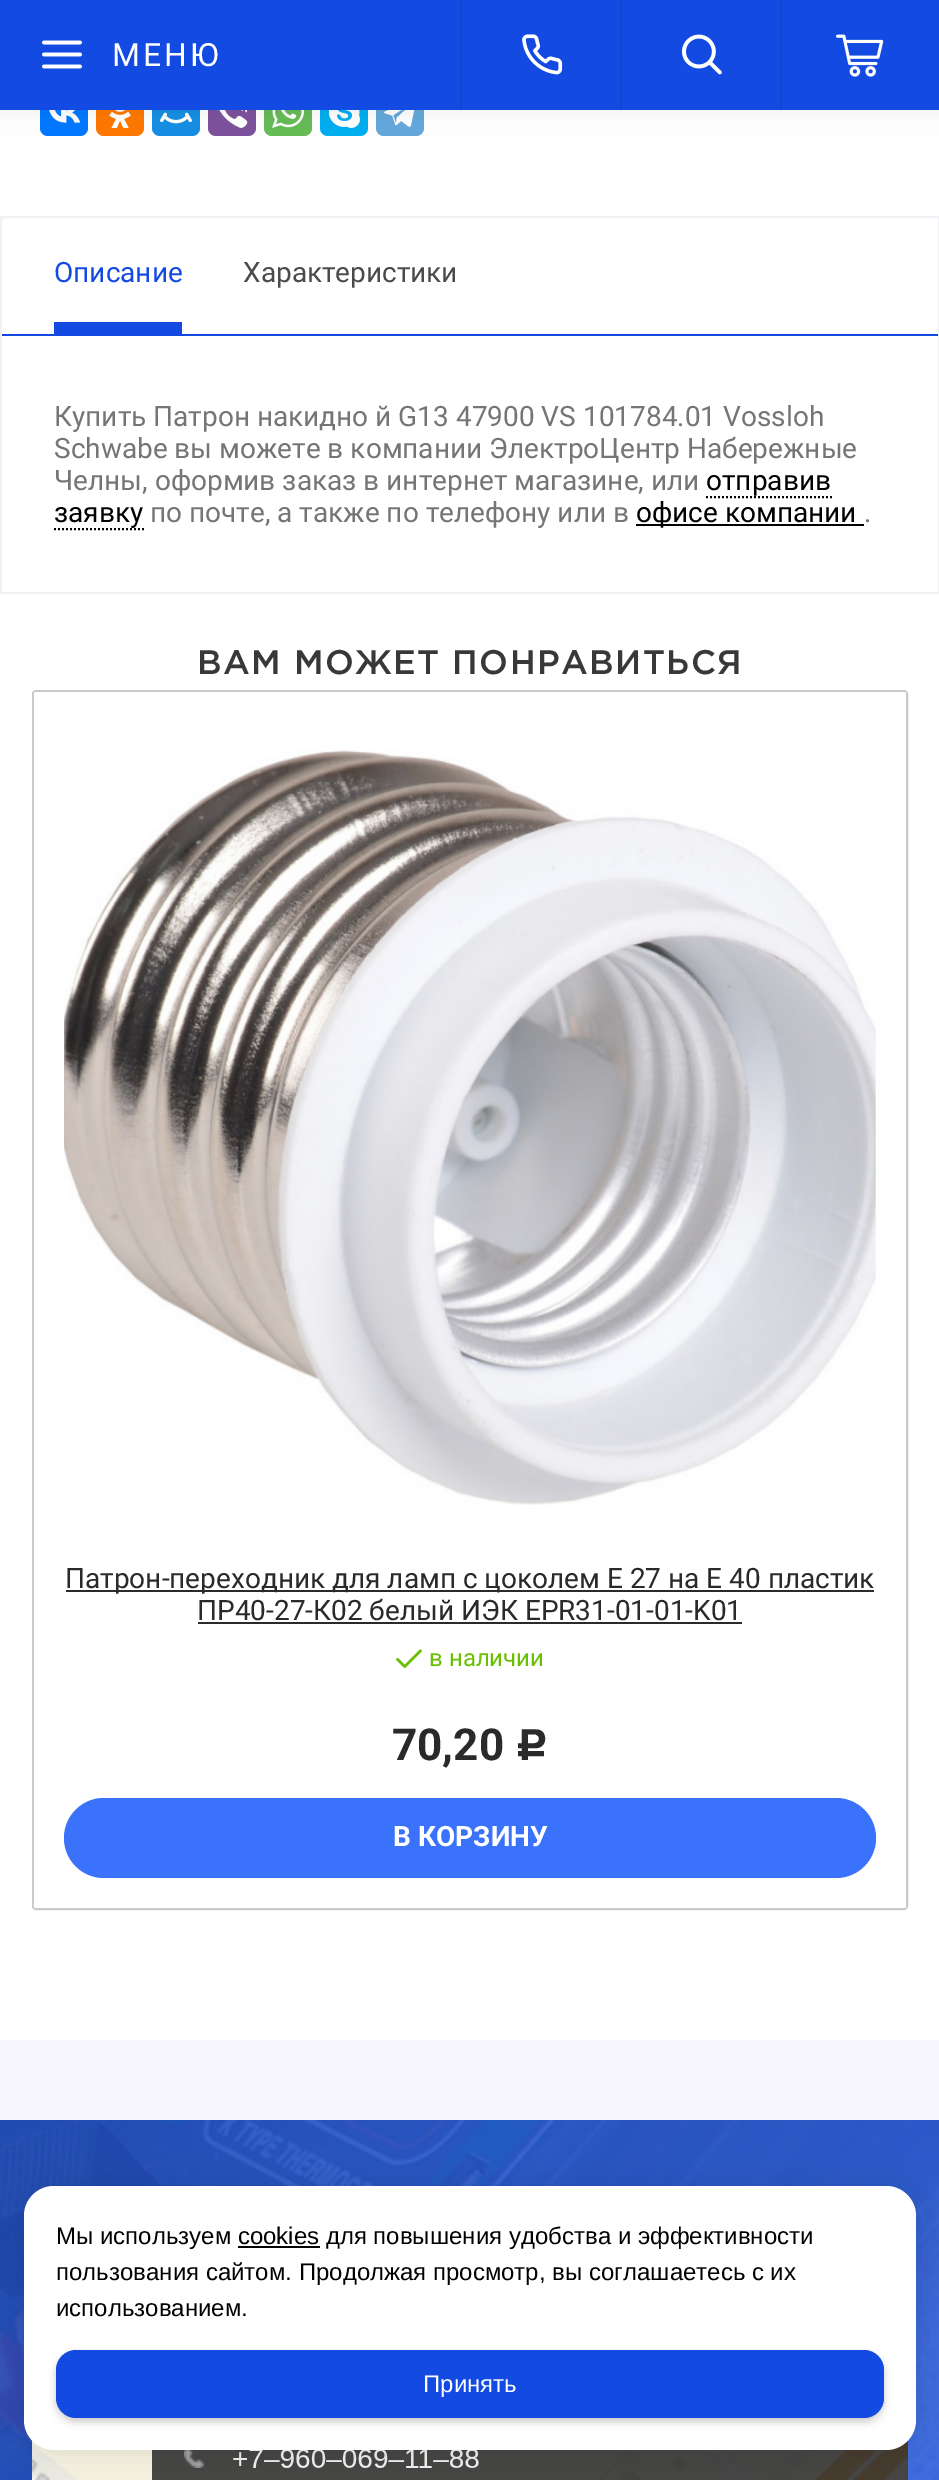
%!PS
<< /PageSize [939 2480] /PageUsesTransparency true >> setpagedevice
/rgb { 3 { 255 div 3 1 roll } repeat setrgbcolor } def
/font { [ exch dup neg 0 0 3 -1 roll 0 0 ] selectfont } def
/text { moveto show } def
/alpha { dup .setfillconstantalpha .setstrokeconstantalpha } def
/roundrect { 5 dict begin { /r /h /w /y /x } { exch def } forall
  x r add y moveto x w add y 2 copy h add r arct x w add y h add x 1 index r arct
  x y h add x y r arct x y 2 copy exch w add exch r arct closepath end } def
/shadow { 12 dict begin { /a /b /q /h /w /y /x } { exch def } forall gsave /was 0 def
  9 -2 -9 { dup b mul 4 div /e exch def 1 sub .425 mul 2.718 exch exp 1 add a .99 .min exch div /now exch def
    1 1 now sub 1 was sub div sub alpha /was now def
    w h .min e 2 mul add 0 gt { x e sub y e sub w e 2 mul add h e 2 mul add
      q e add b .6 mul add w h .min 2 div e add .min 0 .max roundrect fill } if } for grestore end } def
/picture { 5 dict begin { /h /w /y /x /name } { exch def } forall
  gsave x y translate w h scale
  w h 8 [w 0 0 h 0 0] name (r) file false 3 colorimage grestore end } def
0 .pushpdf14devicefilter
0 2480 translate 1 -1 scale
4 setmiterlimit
245 245 251 rgb
0 0 939 2480 rectfill
255 255 255 rgb
0 110 939 1930 rectfill
0 119 255 rgb
40 88 48 48 8 roundrect fill
(img_05.rgb) 49 110 32 13 picture
255 119 0 rgb
96 88 48 48 8 roundrect fill
(img_06.rgb) 109 110 22 18 picture
22 141 226 rgb
152 88 48 48 8 roundrect fill
(img_07.rgb) 160 112 32 12 picture
123 81 157 rgb
208 88 48 48 8 roundrect fill
(img_08.rgb) 219 110 29 18 picture
101 188 84 rgb
264 88 48 48 8 roundrect fill
(img_09.rgb) 272 110 32 18 picture
0 175 240 rgb
320 88 48 48 8 roundrect fill
(img_10.rgb) 328 110 32 18 picture
100 169 220 rgb
376 88 48 48 8 roundrect fill
(img_11.rgb) 384 110 31 17 picture
16 15 28 rgb
-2 -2 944 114 0 10 0.07 shadow
18 74 226 rgb
0 0 939 110 rectfill
(img_01.rgb) 42 40 40 29 picture
18 69 208 rgb
460 0 2 110 rectfill
(img_02.rgb) 522 34 41 41 picture
620 0 2 110 rectfill
(img_03.rgb) 682 34 40 41 picture
780 0 2 110 rectfill
(img_04.rgb) 836 34 48 43 picture
241 242 245 rgb
2 setlinewidth
1 217 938 376 rectstroke
18 74 226 rgb
2 334 936 2 rectfill
54 322 128 12 rectfill
0 0 0 rgb
[2 2] 0 setdash
706 497 moveto 126 0 rlineto stroke
54 529 moveto 90 0 rlineto stroke
636 524 228 2 rectfill
202 202 202 rgb
[] 0 setdash
33 691 874 1218 3 roundrect stroke
255 255 255 rgb
34 692 872 1216 2 roundrect fill
(img_12.rgb) 64 749 812 756 picture
40 42 43 rgb
66 1590 808 2 rectfill
198 1622 544 2 rectfill
(img_13.rgb) 396 1649 26 19 picture
58 114 251 rgb
64 1798 812 80 40 roundrect fill
(img_14.rgb) 0 2120 939 360 picture
(img_15.rgb) 32 2440 876 40 picture
0 0 0 rgb
26 2188 892 264 30 15 0.1 shadow
255 255 255 rgb
24 2186 892 264 30 roundrect fill
0 0 0 rgb
238 2246 82 2 rectfill
56 2354 828 68 20 4 0.2 shadow
18 74 226 rgb
56 2350 828 68 20 roundrect fill
/Roboto-Regular 32 font
255 255 255 rgb
112 66 moveto 3 0 (МЕНЮ) ashow
/Roboto-Regular 28 font
18 74 226 rgb
(Описание) 54 282 text
75 75 75 rgb
(Характеристики) 243 282 text
117 117 118 rgb
(Купить Патрон накидно й G13 47900 VS 101784.01 Vossloh) 54 426 text
(Schwabe вы можете в компании ЭлектроЦентр Набережные) 54 458 text
(Челны, оформив заказ в интернет магазине, или) 54 490 text
0 0 0 rgb
(отправив) 706 490 text
(заявку) 54 522 text
117 117 118 rgb
(по почте, а также по телефону или в) 150 522 text
0 0 0 rgb
(офисе компании) 636 522 text
117 117 118 rgb
(.) 864 522 text
/Gotham-Medium 34 font
55 56 58 rgb
197 674 moveto 1.4 0 (ВАМ МОЖЕТ ПОНРАВИТЬСЯ) ashow
/Roboto-Regular 28 font
40 42 43 rgb
(Патрон-переходник для ламп с цоколем Е 27 на Е 40 пластик) 65 1588 text
(ПР40-27-К02 белый ИЭК EPR31-01-01-K01) 197 1620 text
/Roboto-Regular 24 font
105 192 0 rgb
(в наличии) 429 1666 text
/Roboto-Bold 44 font
40 42 43 rgb
(70,20) 392 1760 text
/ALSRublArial-Bold 44 font
(Р) 515 1760 text
/Roboto-Bold 28 font
255 255 255 rgb
(В КОРЗИНУ) 393 1846 text
/LiberationSans-Regular 24 font
0 0 0 rgb
(Мы используем cookies для повышения удобства и эффективности) 56 2244 text
(пользования сайтом. Продолжая просмотр, вы соглашаетесь с их) 56 2280 text
(использованием.) 56 2316 text
255 255 255 rgb
(Принять) 423 2392 text
.poppdf14devicefilter showpage
